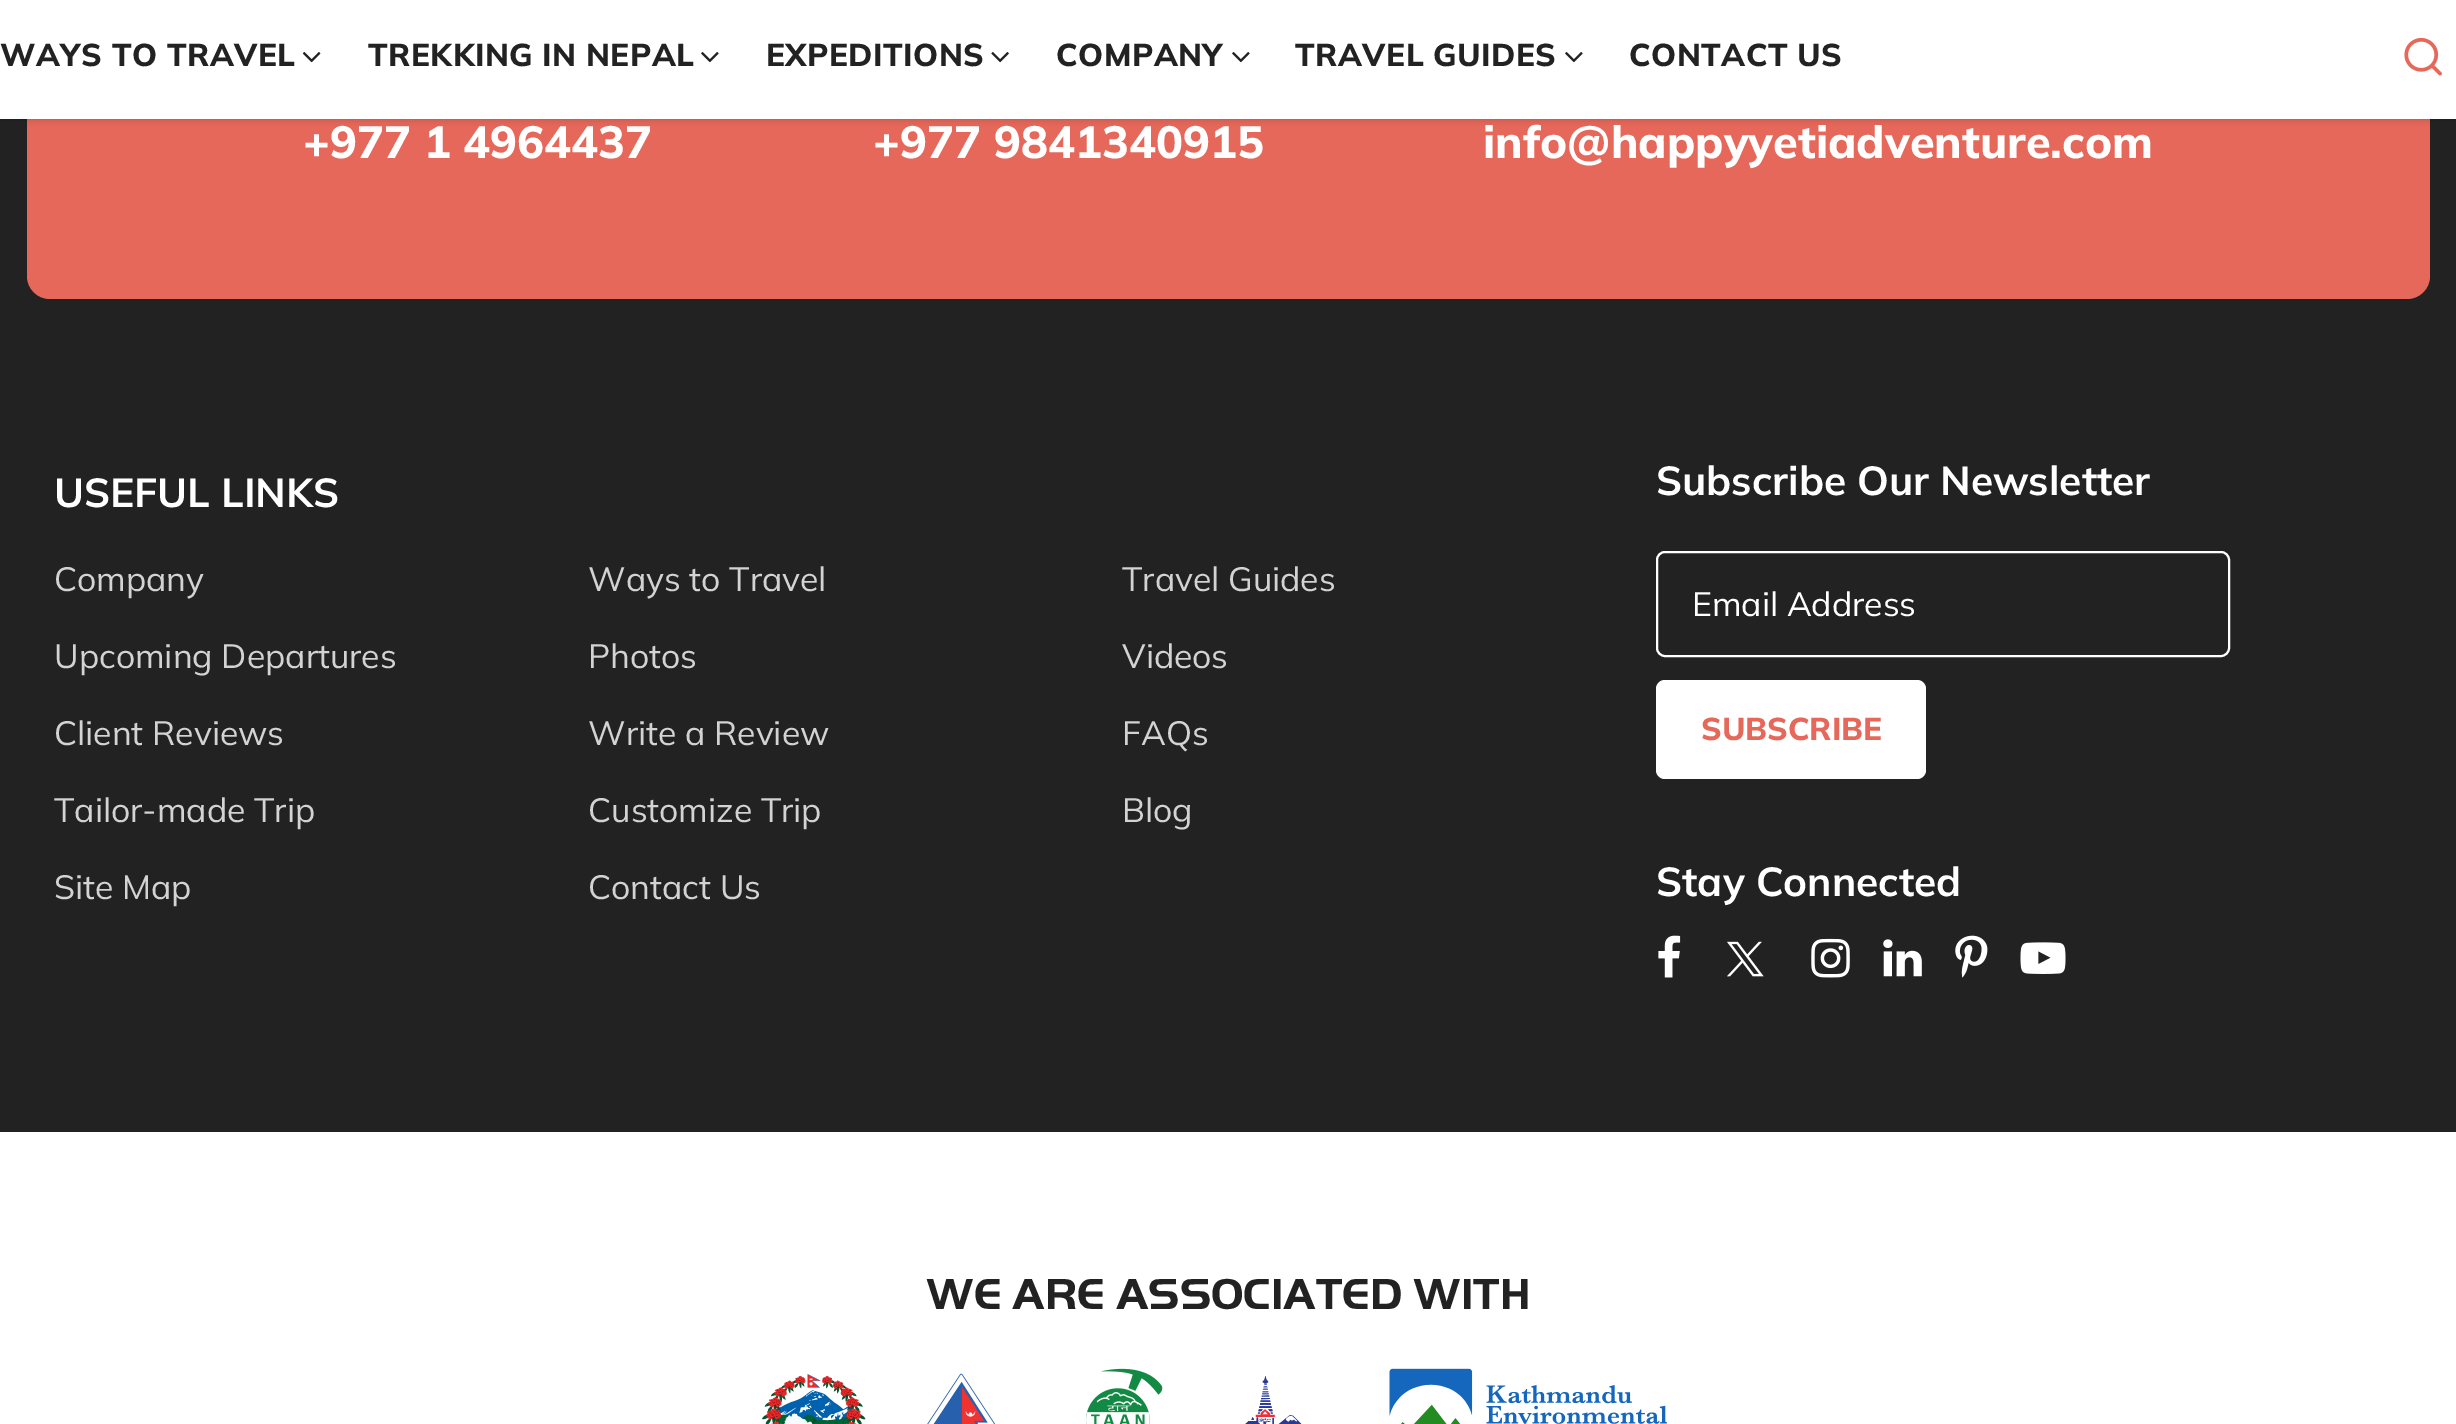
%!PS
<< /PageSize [2456 1424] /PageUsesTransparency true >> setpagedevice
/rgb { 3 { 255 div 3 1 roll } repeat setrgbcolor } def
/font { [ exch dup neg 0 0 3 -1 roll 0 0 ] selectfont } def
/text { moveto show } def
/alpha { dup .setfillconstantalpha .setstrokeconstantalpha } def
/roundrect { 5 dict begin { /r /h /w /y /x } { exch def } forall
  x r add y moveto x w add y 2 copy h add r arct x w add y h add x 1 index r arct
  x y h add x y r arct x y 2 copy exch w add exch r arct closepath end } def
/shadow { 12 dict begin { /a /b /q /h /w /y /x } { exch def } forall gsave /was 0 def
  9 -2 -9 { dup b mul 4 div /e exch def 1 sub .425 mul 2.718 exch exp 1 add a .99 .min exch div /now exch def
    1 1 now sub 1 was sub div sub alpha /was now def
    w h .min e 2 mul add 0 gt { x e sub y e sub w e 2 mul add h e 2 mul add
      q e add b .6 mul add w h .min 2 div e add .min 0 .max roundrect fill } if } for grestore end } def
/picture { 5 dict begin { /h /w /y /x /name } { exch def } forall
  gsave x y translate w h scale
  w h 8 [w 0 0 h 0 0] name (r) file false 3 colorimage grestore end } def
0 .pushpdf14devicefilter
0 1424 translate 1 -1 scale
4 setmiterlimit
34 34 34 rgb
0 0 2456 1424 rectfill
230 104 90 rgb
27 -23 2403 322 23 roundrect fill
0 0 0 rgb
0 -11 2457 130 0 3.5 0.2 shadow
255 255 255 rgb
0 0 2456 119 rectfill
(img_01.rgb) 302 52 19 11 picture
(img_02.rgb) 701 52 18 11 picture
(img_03.rgb) 991 52 18 11 picture
(img_02.rgb) 1232 52 18 11 picture
(img_02.rgb) 1565 52 18 11 picture
(img_04.rgb) 2404 37 38 39 picture
2 setlinewidth
1657 552 572 104 8 roundrect stroke
1656 680 270 99 9 roundrect fill
(img_05.rgb) 1658 935 23 43 picture
(img_06.rgb) 1727 941 37 36 picture
(img_07.rgb) 1811 938 39 40 picture
(img_08.rgb) 1883 939 39 38 picture
(img_09.rgb) 1955 935 33 43 picture
(img_10.rgb) 2020 942 46 32 picture
0 1132 2456 292 rectfill
(img_11.rgb) 762 1374 104 50 picture
(img_12.rgb) 927 1373 69 51 picture
(img_13.rgb) 1086 1368 77 56 picture
(img_14.rgb) 1245 1376 57 48 picture
(img_15.rgb) 1389 1368 278 56 picture
/Mulish-ExtraBold 31.5 font
34 34 34 rgb
0 66 moveto 0.5 0 (WAYS TO TRAVEL) ashow
368 66 moveto 0.5 0 (TREKKING IN NEPAL) ashow
766 66 moveto 0.5 0 (EXPEDITIONS) ashow
1056 66 moveto 0.5 0 (COMPANY) ashow
1295 66 moveto 0.5 0 (TRAVEL GUIDES) ashow
1629 66 moveto 0.5 0 (CONTACT US) ashow
/Mulish-ExtraBold 45 font
255 255 255 rgb
(+977 1 4964437) 303 158 text
(+977 9841340915) 873 158 text
(info@happyyetiadventure.com) 1483 158 text
/Mulish-Bold 40.5 font
(USEFUL LINKS) 54 507 text
/Mulish-Regular 33.75 font
211 211 211 rgb
(Company) 54 591 text
(Ways to Travel) 588 591 text
(Travel Guides) 1122 591 text
(Upcoming Departures) 54 668 text
(Photos) 588 668 text
(Videos) 1122 668 text
(Client Reviews) 54 745 text
(Write a Review) 588 745 text
(FAQs) 1122 745 text
(Tailor-made Trip) 54 822 text
(Customize Trip) 588 822 text
(Blog) 1122 822 text
(Site Map) 54 899 text
(Contact Us) 588 899 text
/Mulish-Bold 40.5 font
255 255 255 rgb
(Subscribe Our Newsletter) 1656 495 text
/Mulish-Regular 33.75 font
(Email Address) 1692 616 text
/Mulish-ExtraBold 31.5 font
230 104 90 rgb
(SUBSCRIBE) 1701 740 text
/Mulish-Bold 40.5 font
255 255 255 rgb
(Stay Connected) 1656 896 text
/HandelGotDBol-Bold 45 font
34 34 34 rgb
(WE ARE ASSOCIATED WITH) 926 1309 text
.poppdf14devicefilter showpage
